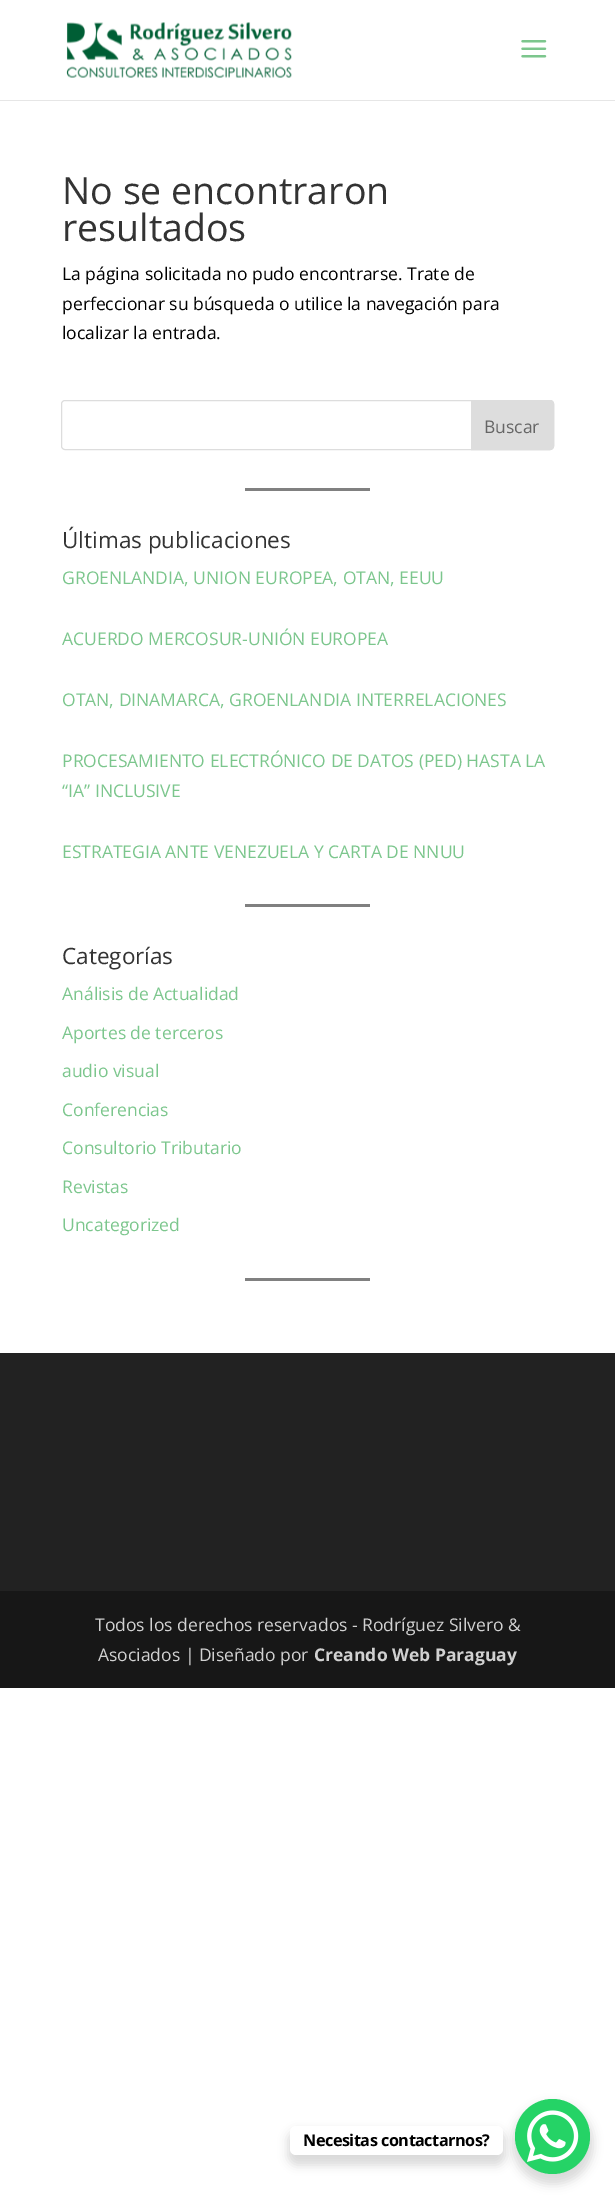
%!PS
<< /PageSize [615 2198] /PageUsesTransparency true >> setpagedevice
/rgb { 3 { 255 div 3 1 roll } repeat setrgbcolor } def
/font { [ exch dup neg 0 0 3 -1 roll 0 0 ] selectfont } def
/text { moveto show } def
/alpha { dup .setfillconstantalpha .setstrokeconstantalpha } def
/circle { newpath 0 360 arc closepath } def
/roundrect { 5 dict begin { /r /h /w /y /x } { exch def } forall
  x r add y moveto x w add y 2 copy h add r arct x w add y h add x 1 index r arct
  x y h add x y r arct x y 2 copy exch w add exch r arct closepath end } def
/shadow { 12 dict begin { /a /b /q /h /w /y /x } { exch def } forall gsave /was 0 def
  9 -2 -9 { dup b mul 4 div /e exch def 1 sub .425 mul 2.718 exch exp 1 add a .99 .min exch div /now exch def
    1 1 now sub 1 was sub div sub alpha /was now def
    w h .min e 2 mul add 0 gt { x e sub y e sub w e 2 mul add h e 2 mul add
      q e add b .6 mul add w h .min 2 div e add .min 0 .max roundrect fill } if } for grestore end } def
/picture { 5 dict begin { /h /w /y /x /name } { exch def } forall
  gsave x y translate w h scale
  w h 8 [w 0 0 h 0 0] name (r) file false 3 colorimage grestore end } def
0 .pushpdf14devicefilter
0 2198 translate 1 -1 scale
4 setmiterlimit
255 255 255 rgb
0 0 615 2198 rectfill
230 230 230 rgb
0 100 615 1 rectfill
(img_01.rgb) 66 22 226 56 picture
(img_02.rgb) 521 40 26 18 picture
221 221 221 rgb
61.5 400.5 492 49 3.5 roundrect stroke
471.5 400.5 moveto 78.5 0 rlineto 2 0 3.5 1.5 3.5 3.5 rcurveto 0 42 rlineto 0 2 -1.5 3.5 -3.5 3.5 rcurveto -78.5 0 rlineto closepath gsave fill grestore
stroke
128 128 128 rgb
245 488 125 3 rectfill
245 904 125 3 rectfill
245 1278 125 3 rectfill
34 34 34 rgb
0 1353 615 238 rectfill
23 23 23 rgb
0 1591 615 97 rectfill
0 0 0 rgb
513 2104 80 80 40 5 0.15 shadow
37 211 102 rgb
552.5 2136.5 37.5 circle fill
0 0 0 rgb
288 2131 217 34 9 5 0.15 shadow
255 255 255 rgb
290 2126 213 29 6 roundrect fill
(img_03.rgb) 527 2110 52 52 picture
/OpenSans-Regular 37.5 font
51 51 51 rgb
(No se encontraron) 62 204 text
(resultados) 62 241 text
/OpenSans-Regular 17.5 font
0 0 0 rgb
(La página solicitada no pudo encontrarse. Trate de) 62 280 text
(perfeccionar su búsqueda o utilice la navegación para) 62 310 text
(localizar la entrada.) 62 339 text
102 102 102 rgb
(Buscar) 484 433 text
/OpenSans-Regular 22.5 font
51 51 51 rgb
(Últimas publicaciones) 62 548 text
/OpenSans-Regular 17.5 font
124 198 141 rgb
(GROENLANDIA, UNION EUROPEA, OTAN, EEUU) 62 584 text
(ACUERDO MERCOSUR-UNIÓN EUROPEA) 62 645 text
(OTAN, DINAMARCA, GROENLANDIA INTERRELACIONES) 62 706 text
(PROCESAMIENTO ELECTRÓNICO DE DATOS \(PED\) HASTA LA) 62 767 text
(“IA” INCLUSIVE) 62 797 text
(ESTRATEGIA ANTE VENEZUELA Y CARTA DE NNUU) 62 858 text
/OpenSans-Regular 22.5 font
51 51 51 rgb
(Categorías) 62 964 text
/OpenSans-Regular 17.5 font
124 198 141 rgb
(Análisis de Actualidad) 62 1000 text
(Aportes de terceros) 62 1039 text
(audio visual) 62 1077 text
(Conferencias) 62 1116 text
(Consultorio Tributario) 62 1154 text
(Revistas) 62 1193 text
(Uncategorized) 62 1231 text
209 209 209 rgb
(Todos los derechos reservados - Rodríguez Silvero &) 95 1631 text
(Asociados | Diseñado por) 98 1661 text
/OpenSans-Bold 17.5 font
(Creando Web Paraguay) 314 1661 text
/OpenSans-Bold 16.25 font
0 0 0 rgb
303 2146 moveto -0.5 0 (Necesitas contactarnos?) ashow
.poppdf14devicefilter showpage
